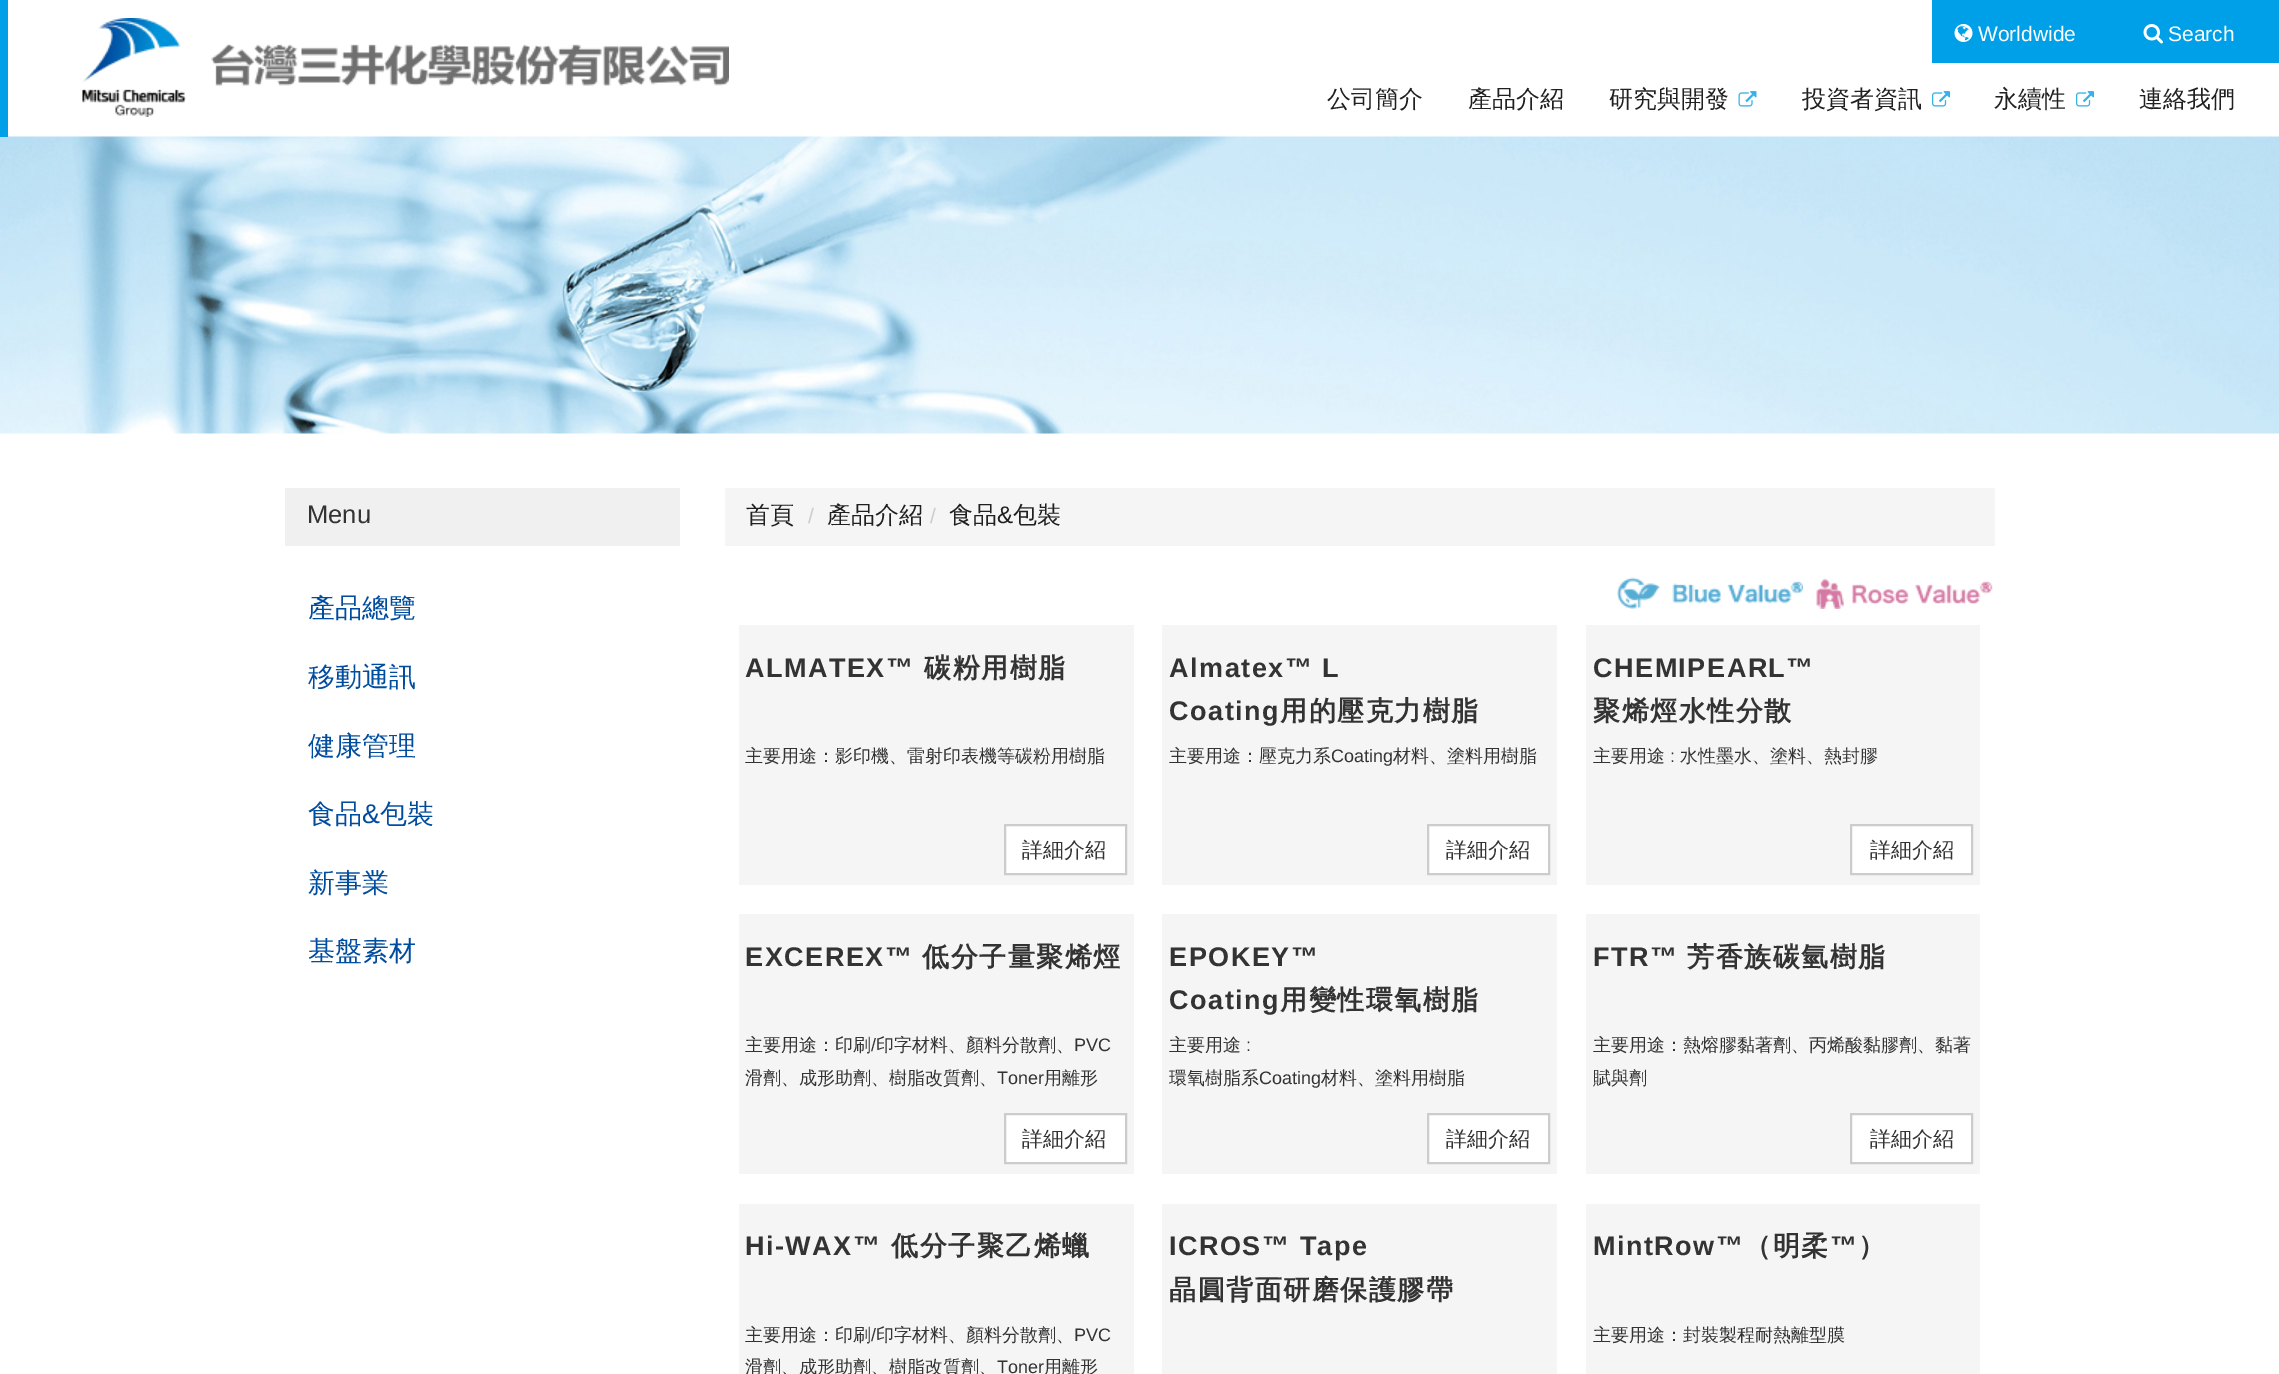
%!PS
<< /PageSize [2279 1374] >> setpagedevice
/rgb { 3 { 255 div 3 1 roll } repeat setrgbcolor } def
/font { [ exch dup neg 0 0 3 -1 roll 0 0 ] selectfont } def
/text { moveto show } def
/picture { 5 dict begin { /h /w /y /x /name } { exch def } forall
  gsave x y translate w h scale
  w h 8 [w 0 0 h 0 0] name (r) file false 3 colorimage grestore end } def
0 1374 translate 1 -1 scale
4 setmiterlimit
255 255 255 rgb
0 0 2279 1374 rectfill
(img_06.rgb) 0 136 2279 298 picture
0 160 233 rgb
0 0 8 137 rectfill
(img_01.rgb) 82 18 647 99 picture
1932 0 347 63 rectfill
(img_02.rgb) 1954 24 19 18 picture
(img_03.rgb) 2143 24 20 20 picture
(img_04.rgb) 1738 91 19 16 picture
(img_05.rgb) 1932 91 18 16 picture
(img_05.rgb) 2076 91 18 16 picture
240 240 240 rgb
285 488 395 58 rectfill
245 245 245 rgb
725 488 1270 58 rectfill
(img_07.rgb) 1617 577 186 32 picture
(img_08.rgb) 1816 578 177 31 picture
739 625 395 260 rectfill
255 255 255 rgb
1005 825 moveto 121 0 rlineto 0 49 rlineto -121 0 rlineto closepath gsave fill grestore
204 204 204 rgb
2 setlinewidth
stroke
245 245 245 rgb
1162 625 395 260 rectfill
255 255 255 rgb
1428 825 moveto 121 0 rlineto 0 49 rlineto -121 0 rlineto closepath gsave fill grestore
204 204 204 rgb
stroke
245 245 245 rgb
1586 625 394 260 rectfill
255 255 255 rgb
1851 825 moveto 121 0 rlineto 0 49 rlineto -121 0 rlineto closepath gsave fill grestore
204 204 204 rgb
stroke
245 245 245 rgb
739 914 395 260 rectfill
255 255 255 rgb
1005 1114 moveto 121 0 rlineto 0 49 rlineto -121 0 rlineto closepath gsave fill grestore
204 204 204 rgb
stroke
245 245 245 rgb
1162 914 395 260 rectfill
255 255 255 rgb
1428 1114 moveto 121 0 rlineto 0 49 rlineto -121 0 rlineto closepath gsave fill grestore
204 204 204 rgb
stroke
245 245 245 rgb
1586 914 394 260 rectfill
255 255 255 rgb
1851 1114 moveto 121 0 rlineto 0 49 rlineto -121 0 rlineto closepath gsave fill grestore
204 204 204 rgb
stroke
245 245 245 rgb
739 1204 395 170 rectfill
1162 1204 395 170 rectfill
1586 1204 394 170 rectfill
/LiberationSans-Regular 21 font
255 255 255 rgb
(Worldwide) 1978 41 text
(Search) 2168 41 text
/WenQuanYiZenHei-Medium 24 font
32 32 32 rgb
(公司簡介) 1327 107 text
(產品介紹) 1468 107 text
(研究與開發) 1609 107 text
(投資者資訊) 1802 107 text
(永續性) 1994 107 text
(連絡我們) 2139 107 text
/LiberationSans-Regular 25.5 font
51 51 51 rgb
(Menu) 307 523 text
/WenQuanYiZenHei-Medium 27 font
0 77 159 rgb
(產品總覽) 308 617 text
(移動通訊) 308 686 text
(健康管理) 308 755 text
(食品) 308 823 text
/LiberationSans-Regular 27 font
(&) 362 823 text
/WenQuanYiZenHei-Medium 27 font
(包裝) 380 823 text
(新事業) 308 892 text
(基盤素材) 308 960 text
/WenQuanYiZenHei-Medium 24 font
32 32 32 rgb
(首頁) 746 523 text
/LiberationSans-Regular 21 font
204 204 204 rgb
(/) 808 523 text
/WenQuanYiZenHei-Medium 24 font
32 32 32 rgb
(產品介紹) 827 523 text
/LiberationSans-Regular 21 font
204 204 204 rgb
(/) 930 523 text
/WenQuanYiZenHei-Medium 24 font
32 32 32 rgb
(食品) 949 523 text
/LiberationSans-Regular 24 font
(&) 997 523 text
/WenQuanYiZenHei-Medium 24 font
(包裝) 1013 523 text
/LiberationSans-Bold 27 font
51 51 51 rgb
745 677 moveto 1.5 0 (ALMATEX™) ashow
/WenQuanYiZenHei-Bold 27 font
924 677 moveto 1.5 0 (碳粉用樹脂) ashow
/WenQuanYiZenHei-Medium 18 font
(主要用途：影印機、雷射印表機等碳粉用樹脂) 745 762 text
/WenQuanYiZenHei-Medium 21 font
(詳細介紹) 1022 857 text
/LiberationSans-Bold 27 font
1169 677 moveto 1.5 0 (Almatex™ L) ashow
1169 720 moveto 1.5 0 (Coating) ashow
/WenQuanYiZenHei-Bold 27 font
1280 720 moveto 1.5 0 (用的壓克力樹脂) ashow
/WenQuanYiZenHei-Medium 18 font
(主要用途：壓克力系) 1169 762 text
/LiberationSans-Regular 18 font
(Coating) 1331 762 text
/WenQuanYiZenHei-Medium 18 font
(材料、塗料用樹脂) 1393 762 text
/WenQuanYiZenHei-Medium 21 font
(詳細介紹) 1446 857 text
/LiberationSans-Bold 27 font
1593 677 moveto 1.5 0 (CHEMIPEARL™) ashow
/WenQuanYiZenHei-Bold 27 font
1593 720 moveto 1.5 0 (聚烯烴水性分散) ashow
/WenQuanYiZenHei-Medium 18 font
(主要用途) 1593 762 text
/LiberationSans-Regular 18 font
(:) 1670 762 text
/WenQuanYiZenHei-Medium 18 font
(水性墨水、塗料、熱封膠) 1680 762 text
/WenQuanYiZenHei-Medium 21 font
(詳細介紹) 1870 857 text
/LiberationSans-Bold 27 font
745 966 moveto 1.5 0 (EXCEREX™) ashow
/WenQuanYiZenHei-Bold 27 font
922 966 moveto 1.5 0 (低分子量聚烯烴) ashow
/WenQuanYiZenHei-Medium 18 font
(主要用途：印刷) 745 1051 text
/LiberationSans-Regular 18 font
(/) 871 1051 text
/WenQuanYiZenHei-Medium 18 font
(印字材料、顏料分散劑、) 876 1051 text
/LiberationSans-Regular 18 font
(PVC) 1074 1051 text
/WenQuanYiZenHei-Medium 18 font
(滑劑、成形助劑、樹脂改質劑、) 745 1084 text
/LiberationSans-Regular 18 font
(Toner) 997 1084 text
/WenQuanYiZenHei-Medium 18 font
(用離形) 1044 1084 text
/WenQuanYiZenHei-Medium 21 font
(詳細介紹) 1022 1146 text
/LiberationSans-Bold 27 font
1169 966 moveto 1.5 0 (EPOKEY™) ashow
1169 1009 moveto 1.5 0 (Coating) ashow
/WenQuanYiZenHei-Bold 27 font
1280 1009 moveto 1.5 0 (用變性環氧樹脂) ashow
/WenQuanYiZenHei-Medium 18 font
(主要用途) 1169 1051 text
/LiberationSans-Regular 18 font
(:) 1246 1051 text
/WenQuanYiZenHei-Medium 18 font
(環氧樹脂系) 1169 1084 text
/LiberationSans-Regular 18 font
(Coating) 1259 1084 text
/WenQuanYiZenHei-Medium 18 font
(材料、塗料用樹脂) 1321 1084 text
/WenQuanYiZenHei-Medium 21 font
(詳細介紹) 1446 1146 text
/LiberationSans-Bold 27 font
1593 966 moveto 1.5 0 (FTR™) ashow
/WenQuanYiZenHei-Bold 27 font
1687 966 moveto 1.5 0 (芳香族碳氫樹脂) ashow
/WenQuanYiZenHei-Medium 18 font
(主要用途：熱熔膠黏著劑、丙烯酸黏膠劑、黏著) 1593 1051 text
(賦與劑) 1593 1084 text
/WenQuanYiZenHei-Medium 21 font
(詳細介紹) 1870 1146 text
/LiberationSans-Bold 27 font
745 1255 moveto 1.5 0 (Hi-WAX™) ashow
/WenQuanYiZenHei-Bold 27 font
891 1255 moveto 1.5 0 (低分子聚乙烯蠟) ashow
/WenQuanYiZenHei-Medium 18 font
(主要用途：印刷) 745 1341 text
/LiberationSans-Regular 18 font
(/) 871 1341 text
/WenQuanYiZenHei-Medium 18 font
(印字材料、顏料分散劑、) 876 1341 text
/LiberationSans-Regular 18 font
(PVC) 1074 1341 text
/WenQuanYiZenHei-Medium 18 font
(滑劑、成形助劑、樹脂改質劑、) 745 1373 text
/LiberationSans-Regular 18 font
(Toner) 997 1373 text
/WenQuanYiZenHei-Medium 18 font
(用離形) 1044 1373 text
/LiberationSans-Bold 27 font
1169 1255 moveto 1.5 0 (ICROS™ Tape) ashow
/WenQuanYiZenHei-Bold 27 font
1169 1299 moveto 1.5 0 (晶圓背面研磨保護膠帶) ashow
/LiberationSans-Bold 27 font
1593 1255 moveto 1.5 0 (MintRow™) ashow
/WenQuanYiZenHei-Bold 27 font
1744 1255 moveto 1.5 0 (（明柔) ashow
/LiberationSans-Bold 27 font
1830 1255 moveto 1.5 0 (™) ashow
/WenQuanYiZenHei-Bold 27 font
1858 1255 moveto 1.5 0 (）) ashow
/WenQuanYiZenHei-Medium 18 font
(主要用途：封裝製程耐熱離型膜) 1593 1341 text
showpage
